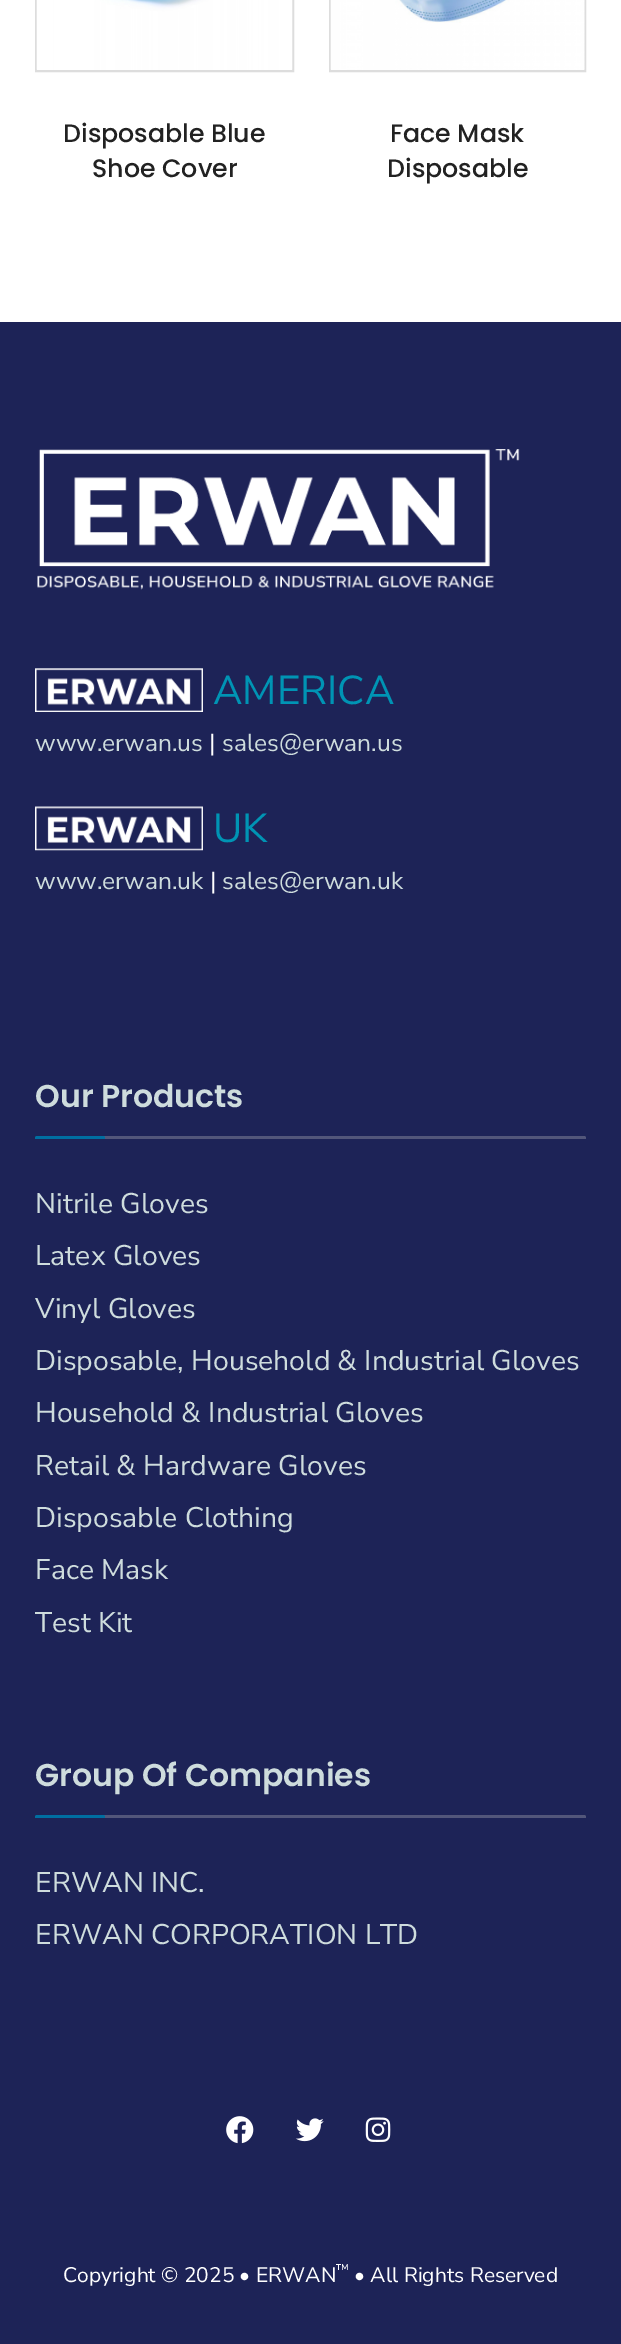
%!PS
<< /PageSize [621 2344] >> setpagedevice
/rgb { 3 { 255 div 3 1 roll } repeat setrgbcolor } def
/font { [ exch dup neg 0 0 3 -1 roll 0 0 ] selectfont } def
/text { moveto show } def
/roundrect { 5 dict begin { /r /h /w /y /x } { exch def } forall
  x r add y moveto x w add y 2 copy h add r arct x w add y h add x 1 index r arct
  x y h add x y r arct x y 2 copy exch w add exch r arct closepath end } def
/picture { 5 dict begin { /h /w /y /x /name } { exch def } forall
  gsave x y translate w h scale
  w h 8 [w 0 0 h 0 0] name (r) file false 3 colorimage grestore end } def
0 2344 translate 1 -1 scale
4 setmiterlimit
255 255 255 rgb
0 0 621 2344 rectfill
221 221 221 rgb
2 setlinewidth
36 -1 257 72 rectstroke
(img_01.rgb) 36 0 257 70 picture
330 -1 255 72 rectstroke
(img_02.rgb) 330 0 255 70 picture
29 35 87 rgb
0 322 621 2022 rectfill
(img_03.rgb) 37 449 483 141 picture
(img_04.rgb) 35 668 168 44 picture
(img_05.rgb) 35 806 168 45 picture
gsave
35 1076 551 63 rectclip
82 86 122 rgb
102 1136 484 4 2 roundrect fill
0 110 161 rgb
35 1136 70 4 2 roundrect fill
grestore
gsave
35 1755 551 63 rectclip
82 86 122 rgb
102 1815 484 4 2 roundrect fill
0 110 161 rgb
35 1815 70 4 2 roundrect fill
grestore
(img_06.rgb) 226 2116 28 28 picture
(img_07.rgb) 295 2118 29 24 picture
(img_08.rgb) 365 2117 26 25 picture
/Poppins-Medium 25.25 font
34 34 34 rgb
(Disposable Blue) 63 142 text
(Shoe Cover) 92 177 text
(Face Mask) 390 142 text
(Disposable) 387 177 text
/NunitoSans-Regular 40.25 font
0 148 180 rgb
(AMERICA) 213 704 text
/NunitoSans-Regular 24.5 font
206 220 221 rgb
(www.erwan.us) 35 751 text
255 255 255 rgb
(|) 209 751 text
206 220 221 rgb
(sales@erwan.us) 222 751 text
/NunitoSans-Regular 40.25 font
0 148 180 rgb
(UK) 213 842 text
/NunitoSans-Regular 24.5 font
206 220 221 rgb
(www.erwan.uk) 35 889 text
255 255 255 rgb
(|) 210 889 text
206 220 221 rgb
(sales@erwan.uk) 222 889 text
/Poppins-SemiBold 31.5 font
(Our Products) 35 1107 text
/NunitoSans-Regular 28.4 font
(Nitrile Gloves) 35 1213 text
(Latex Gloves) 35 1265 text
(Vinyl Gloves) 35 1318 text
(Disposable, Household & Industrial Gloves) 35 1370 text
(Household & Industrial Gloves) 35 1422 text
(Retail & Hardware Gloves) 35 1475 text
(Disposable Clothing) 35 1527 text
(Face Mask) 35 1579 text
(Test Kit) 35 1632 text
/Poppins-SemiBold 31.5 font
(Group Of Companies) 35 1786 text
/NunitoSans-Regular 28.4 font
(ERWAN INC.) 35 1892 text
(ERWAN CORPORATION LTD) 35 1944 text
/NunitoSans-Regular 21 font
255 255 255 rgb
(Copyright © 2025 • ERWAN) 63 2282 text
/NunitoSans-Regular 14 font
(™) 336 2274 text
/NunitoSans-Regular 21 font
(• All Rights Reserved) 354 2282 text
showpage
